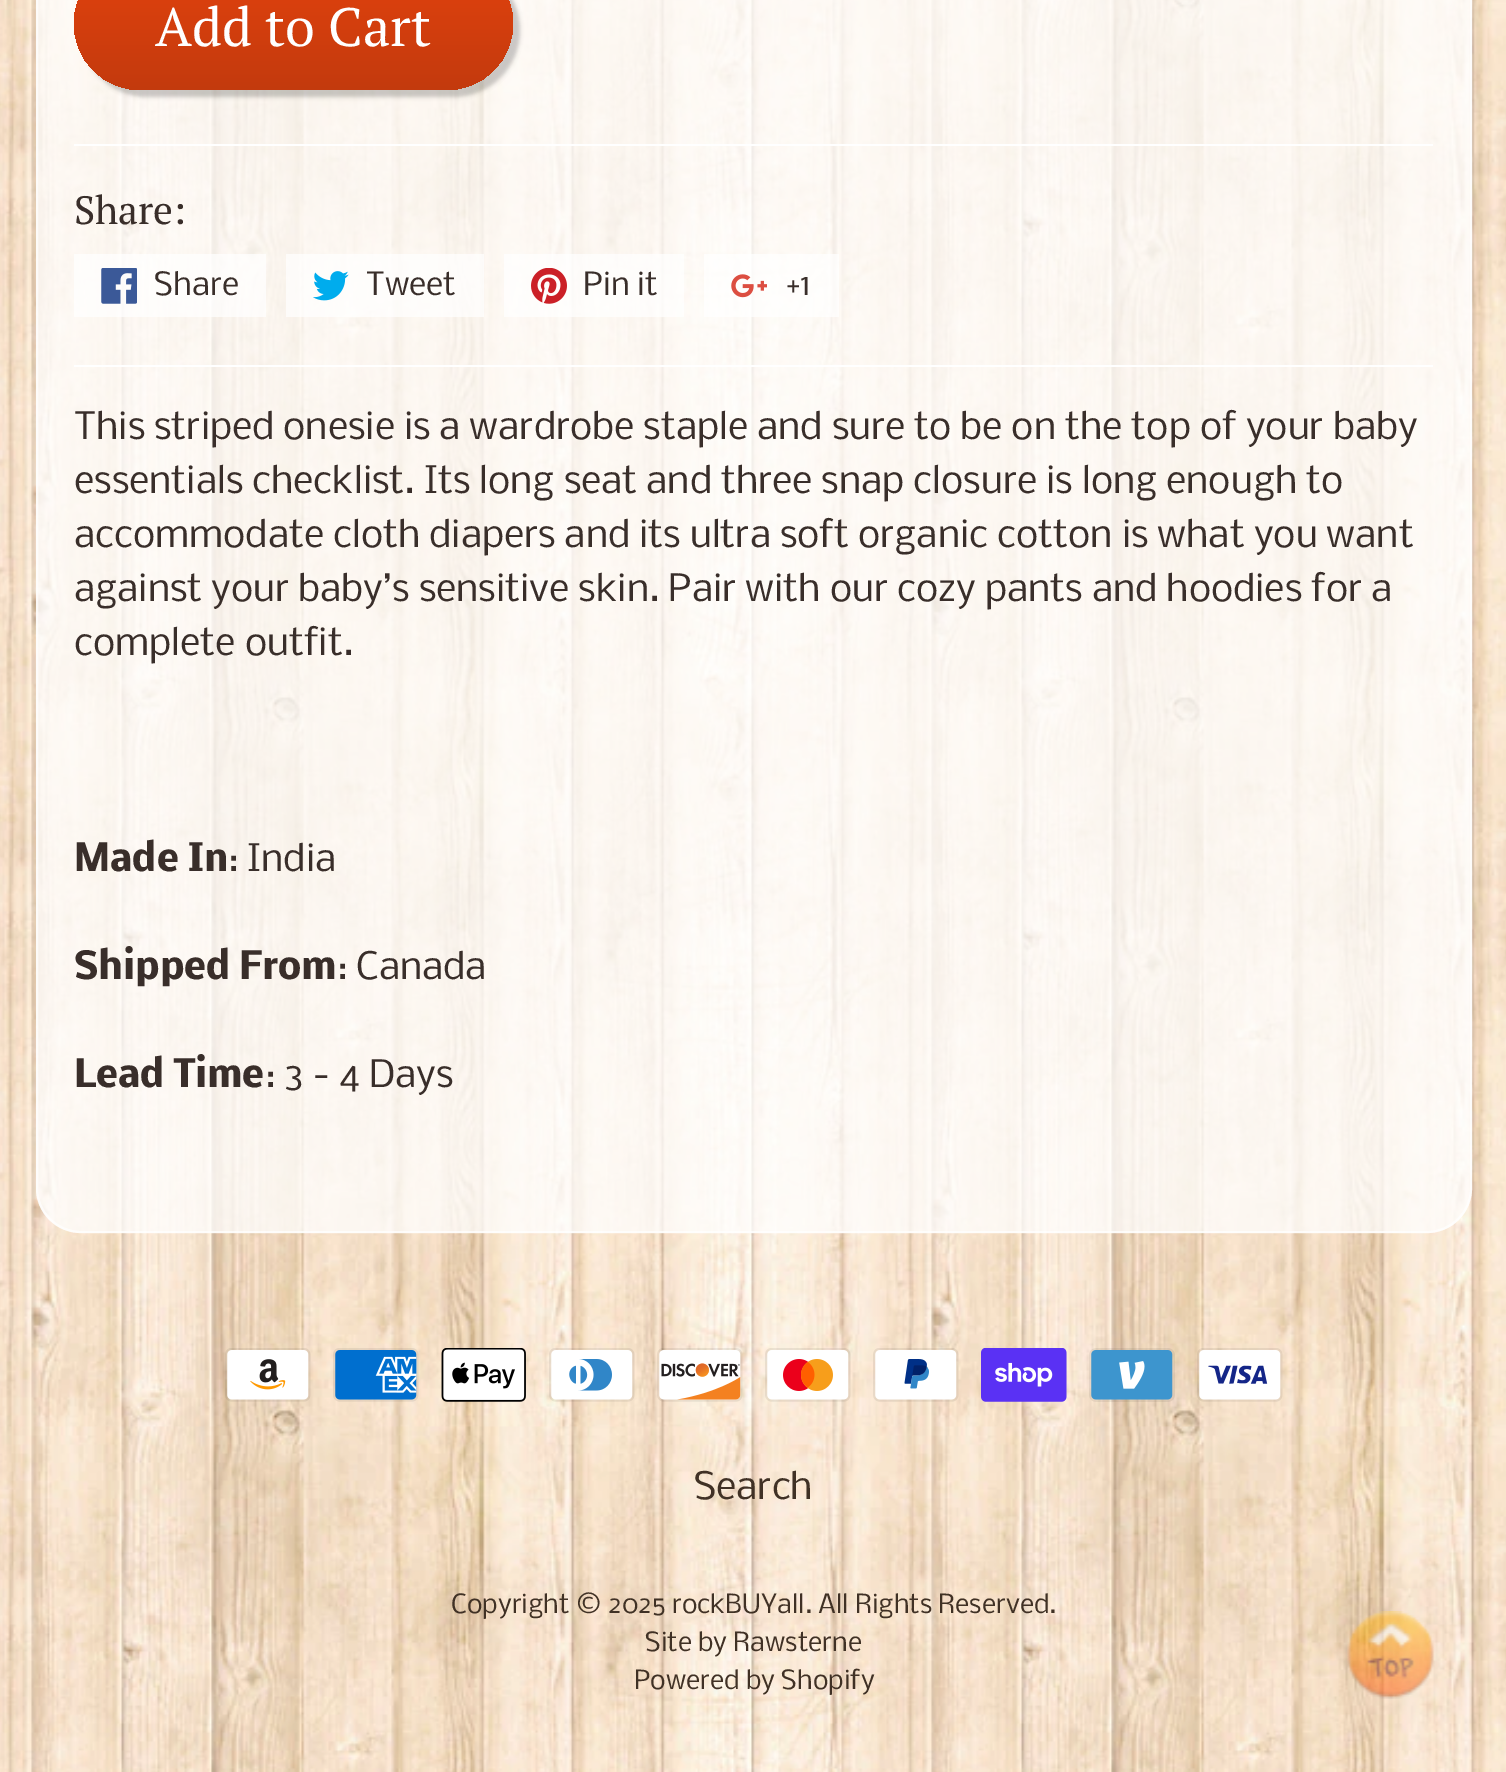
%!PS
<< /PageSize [1506 1772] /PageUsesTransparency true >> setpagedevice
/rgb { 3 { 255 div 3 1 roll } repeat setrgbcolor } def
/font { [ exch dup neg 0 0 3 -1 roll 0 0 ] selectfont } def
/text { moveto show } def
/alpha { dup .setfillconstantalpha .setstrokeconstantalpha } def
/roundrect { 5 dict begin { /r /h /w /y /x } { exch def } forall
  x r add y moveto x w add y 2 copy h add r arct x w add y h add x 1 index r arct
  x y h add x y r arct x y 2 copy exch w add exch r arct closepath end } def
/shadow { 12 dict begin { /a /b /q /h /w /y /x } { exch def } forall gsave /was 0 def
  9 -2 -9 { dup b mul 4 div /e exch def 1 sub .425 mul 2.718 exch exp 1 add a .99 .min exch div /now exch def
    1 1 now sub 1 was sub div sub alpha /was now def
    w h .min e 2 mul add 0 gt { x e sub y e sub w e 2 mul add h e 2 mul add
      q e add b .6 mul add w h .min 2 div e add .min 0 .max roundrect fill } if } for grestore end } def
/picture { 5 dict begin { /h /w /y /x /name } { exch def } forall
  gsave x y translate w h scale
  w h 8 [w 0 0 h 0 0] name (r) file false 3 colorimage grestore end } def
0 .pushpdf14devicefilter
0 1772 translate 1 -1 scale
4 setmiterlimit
255 255 255 rgb
0 0 1506 1772 rectfill
(img_01.rgb) 0 0 1506 1772 picture
0.75 alpha
36 -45 1436 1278 45 roundrect fill
0.7 alpha
2 setlinewidth
37 -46 1434 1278 44 roundrect stroke
1 alpha
0 0 0 rgb
81 -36 439 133 66.5 2 0.2 shadow
gsave 74 -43 439 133 66.5 roundrect clip newpath
<< /ShadingType 2 /ColorSpace /DeviceRGB /Coords [294 -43 294 90] /Extend [true true] /Function << /FunctionType 2 /Domain [0 1] /C0 [0.89 0.263 0.051] /C1 [0.765 0.227 0.055] /N 1 >> >> shfill grestore
255 255 255 rgb
74 144 1359 2 rectfill
0.7 alpha
74 254 192 63 rectfill
1 alpha
(img_02.rgb) 101 268 36 36 picture
0.7 alpha
286 254 198 63 rectfill
1 alpha
(img_03.rgb) 313 271 36 30 picture
0.7 alpha
504 254 180 63 rectfill
1 alpha
(img_04.rgb) 531 268 36 36 picture
0.7 alpha
704 254 135 63 rectfill
1 alpha
(img_05.rgb) 731 274 36 24 picture
74 365 1359 2 rectfill
(img_06.rgb) 225 1348 86 54 picture
(img_07.rgb) 333 1348 86 54 picture
(img_08.rgb) 441 1348 85 54 picture
(img_09.rgb) 549 1348 86 54 picture
(img_10.rgb) 657 1348 86 54 picture
(img_11.rgb) 765 1348 86 54 picture
(img_12.rgb) 873 1348 86 54 picture
(img_13.rgb) 981 1348 86 54 picture
(img_14.rgb) 1089 1348 86 54 picture
(img_15.rgb) 1197 1348 86 54 picture
(img_16.rgb) 1347 1611 88 88 picture
/PTSerif-Regular 54 font
(Add to Cart) 155 46 text
/PTSerif-Regular 39.5 font
57 46 42 rgb
(Share:) 74 224 text
/Nobile-Regular 30.5 font
(Share) 154 295 text
(Tweet) 366 295 text
(Pin it) 583 295 text
(+1) 785 295 text
/Nobile-Regular 36 font
(This striped onesie is a wardrobe staple and sure to be on the top of your baby) 74 439 text
(essentials checklist. Its long seat and three snap closure is long enough to) 74 493 text
(accommodate cloth diapers and its ultra soft organic cotton is what you want) 74 547 text
(against your baby’s sensitive skin. Pair with our cozy pants and hoodies for a) 74 601 text
(complete outfit.) 74 655 text
/Nobile-Bold 36 font
(Made In) 74 871 text
/Nobile-Regular 36 font
(: India) 228 871 text
/Nobile-Bold 36 font
(Shipped From) 74 979 text
/Nobile-Regular 36 font
(: Canada) 337 979 text
/Nobile-Bold 36 font
(Lead Time) 74 1087 text
/Nobile-Regular 36 font
(: 3 - 4 Days) 265 1087 text
64 49 37 rgb
(Search) 694 1499 text
/Nobile-Regular 25.2 font
(Copyright © 2025 rockBUYall. All Rights Reserved.) 451 1613 text
(Site by Rawsterne) 645 1651 text
(Powered by Shopify) 634 1689 text
.poppdf14devicefilter showpage
